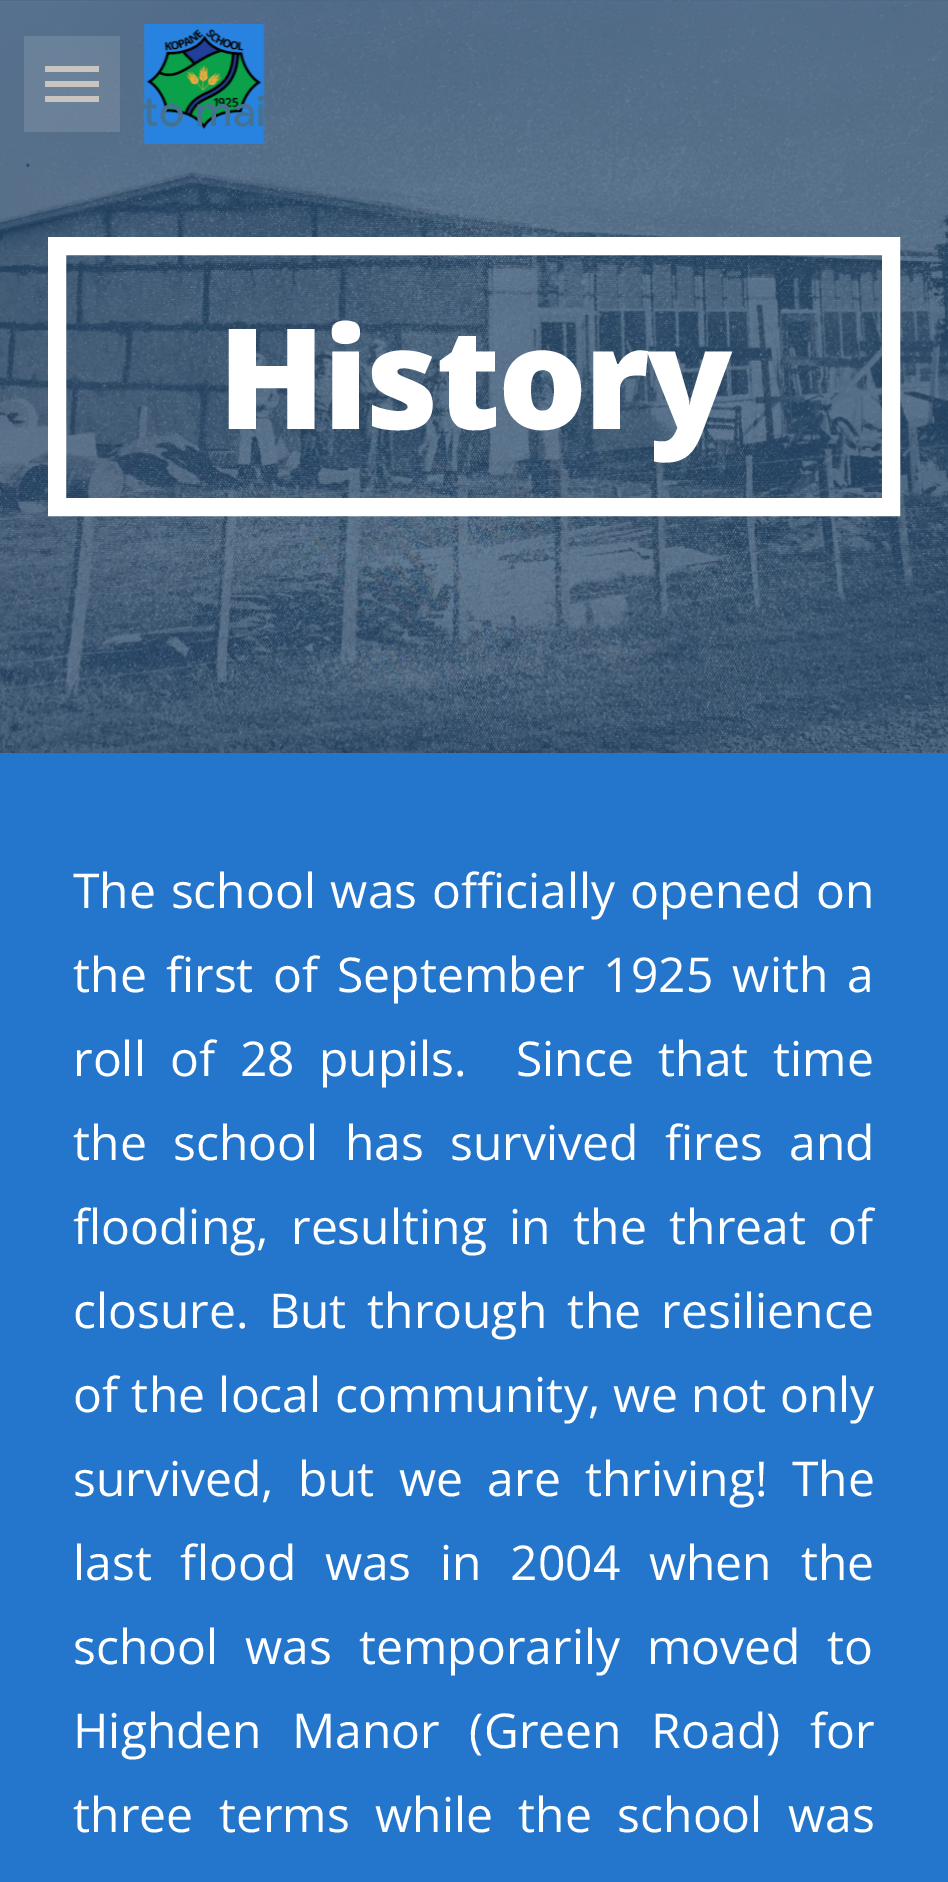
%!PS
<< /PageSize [948 1882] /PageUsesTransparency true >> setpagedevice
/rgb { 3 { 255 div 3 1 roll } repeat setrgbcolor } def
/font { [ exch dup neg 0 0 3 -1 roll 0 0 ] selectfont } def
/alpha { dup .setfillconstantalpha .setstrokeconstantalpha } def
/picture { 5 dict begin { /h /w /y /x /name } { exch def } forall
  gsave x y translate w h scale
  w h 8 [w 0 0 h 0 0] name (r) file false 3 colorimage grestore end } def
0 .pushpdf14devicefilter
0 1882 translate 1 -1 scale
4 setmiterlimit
255 255 255 rgb
0 0 948 1882 rectfill
(img_02.rgb) 0 0 948 753 picture
192 189 184 rgb
45 66 54 6 rectfill
45 81 54 6 rectfill
45 96 54 6 rectfill
0.12 alpha
255 255 255 rgb
24 36 96 96 rectfill
1 alpha
(img_01.rgb) 143 24 122 120 picture
18 setlinewidth
57 246 834 261 rectstroke
35 118 204 rgb
0 753 948 1129 rectfill
/GoogleSans-Medium 42 font
69 114 146 rgb
142 126 moveto 0.5 0 (to mai) ashow
/OpenSans-ExtraBold 140 font
255 255 255 rgb
218 429 moveto -2.5 0 (History) ashow
/OpenSans-Regular 48 font
73 908 moveto 2.25 0 32 (The school was officially opened on) widthshow
73 992 moveto 6.75 0 32 (the first of September 1925 with a) widthshow
73 1076 moveto 12 0 32 (roll of 28 pupils.  Since that time) widthshow
73 1160 moveto 14 0 32 (the school has survived fires and) widthshow
73 1244 moveto 10 0 32 (flooding, resulting in the threat of) widthshow
73 1328 moveto 8 0 32 (closure. But through the resilience) widthshow
73 1412 moveto 1 0 32 (of the local community, we not only) widthshow
73 1496 moveto 12 0 32 (survived, but we are thriving! The) widthshow
73 1580 moveto 16.25 0 32 (last flood was in 2004 when the) widthshow
73 1664 moveto 14.5 0 32 (school was temporarily moved to) widthshow
73 1748 moveto 17.5 0 32 (Highden Manor \(Green Road\) for) widthshow
73 1832 moveto 13 0 32 (three terms while the school was) widthshow
.poppdf14devicefilter showpage
